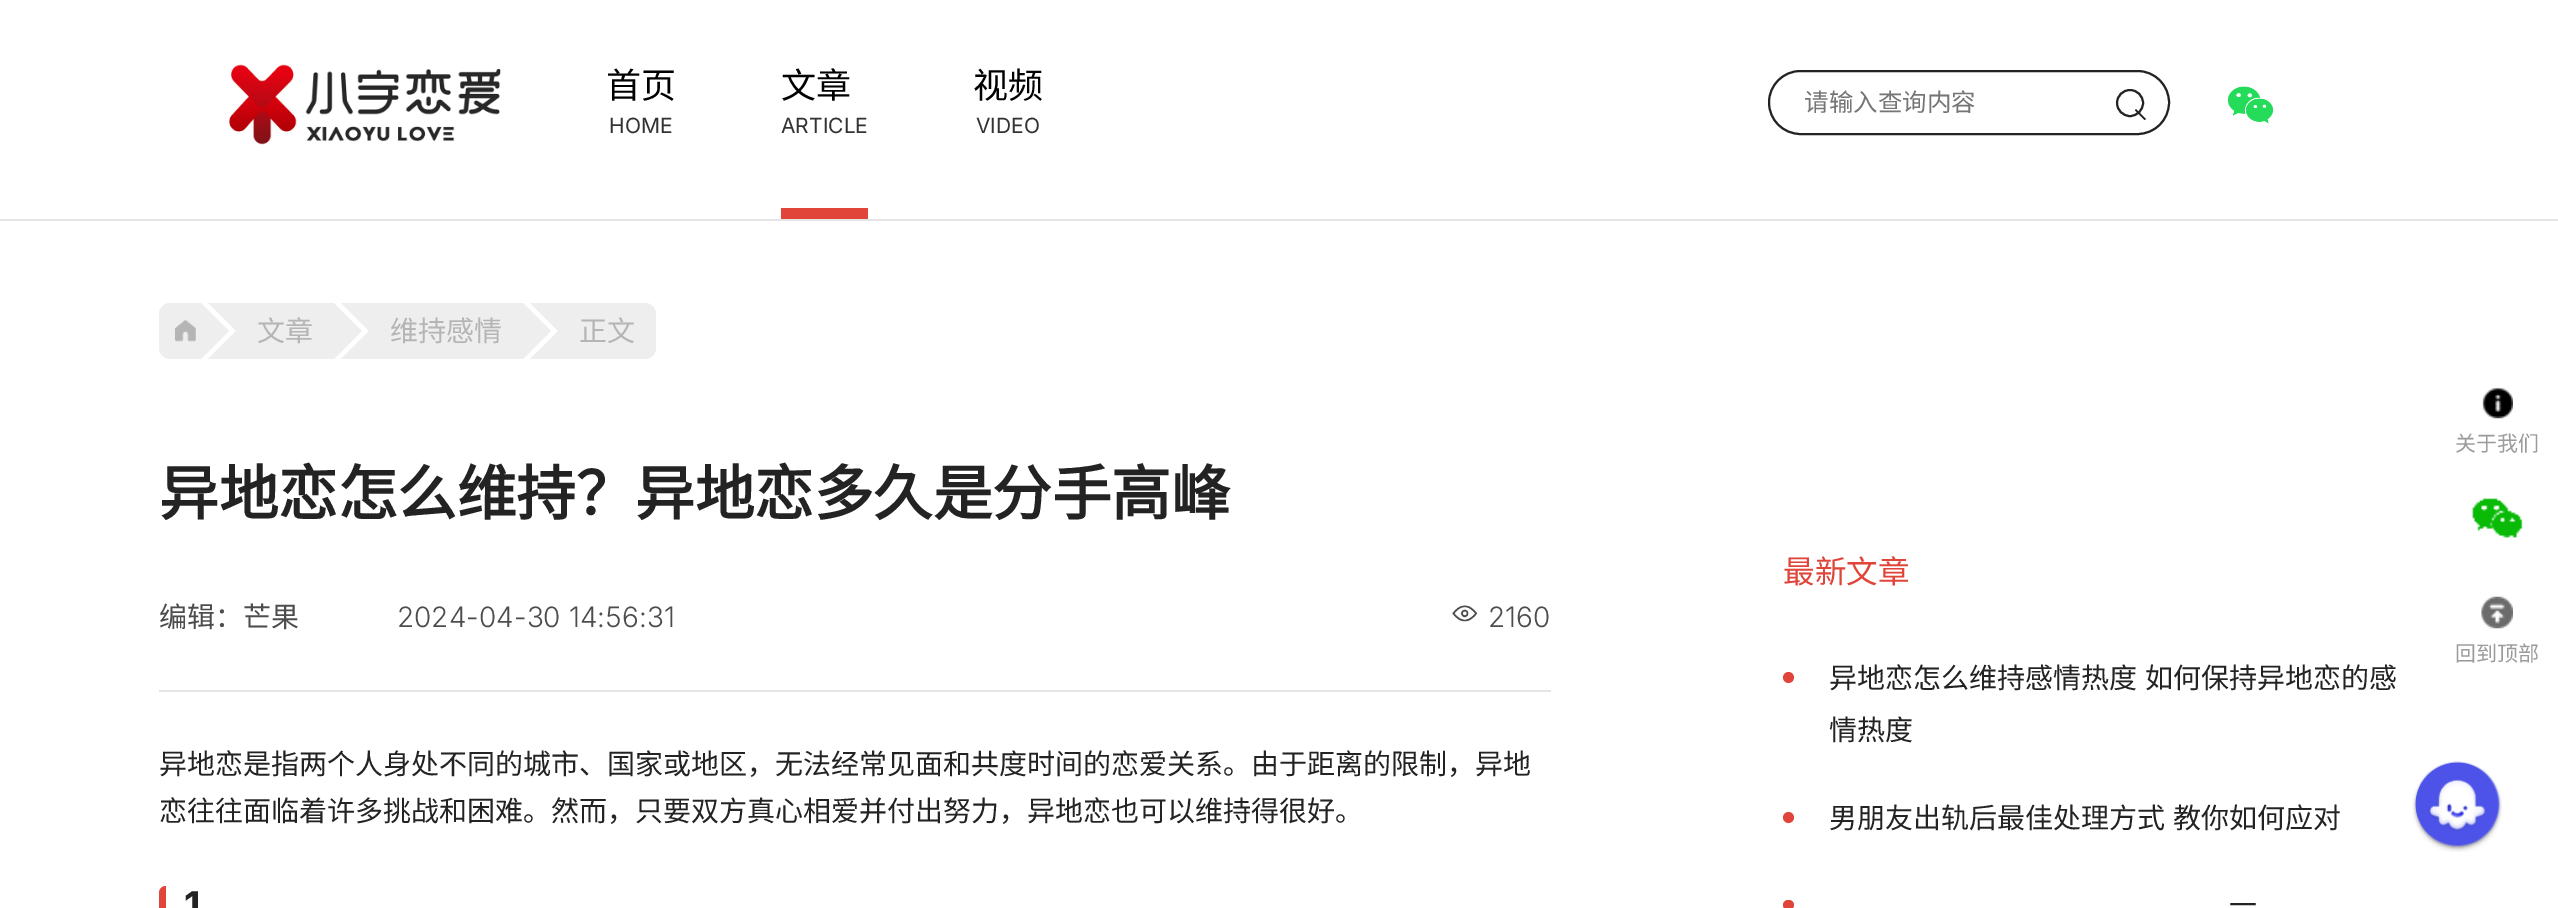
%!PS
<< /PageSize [2558 908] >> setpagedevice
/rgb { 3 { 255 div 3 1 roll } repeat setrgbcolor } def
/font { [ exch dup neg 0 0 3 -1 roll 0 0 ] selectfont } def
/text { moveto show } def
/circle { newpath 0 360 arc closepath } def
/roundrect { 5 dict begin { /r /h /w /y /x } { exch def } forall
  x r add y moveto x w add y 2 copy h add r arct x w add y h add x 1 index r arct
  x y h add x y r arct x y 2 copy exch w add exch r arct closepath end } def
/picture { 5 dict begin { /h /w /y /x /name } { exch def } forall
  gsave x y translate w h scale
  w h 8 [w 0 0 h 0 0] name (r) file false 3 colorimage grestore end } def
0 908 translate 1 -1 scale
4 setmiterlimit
255 255 255 rgb
0 0 2558 908 rectfill
229 229 229 rgb
0 219 2558 2 rectfill
(img_01.rgb) 229 64 272 81 picture
225 68 56 rgb
781 208 87 11 rectfill
35 35 35 rgb
2 setlinewidth
1769 71 400 63 31.5 roundrect stroke
2130 103 13 circle stroke
2136 109 moveto 10 10 rlineto -1.5 1 rlineto -9.5 -9.5 rlineto closepath fill
(img_02.rgb) 2228 86 46 38 picture
238 238 238 rgb
170 303 moveto 31 0 rlineto 0 56 rlineto -31 0 rlineto -6 0 -11 -5 -11 -11 rcurveto 0 -34 rlineto 0 -6 5 -11 11 -11 rcurveto closepath fill
(img_03.rgb) 175 320 21 22 picture
201 359 moveto 0 -56 rlineto 28 28 rlineto closepath fill
236 303 98 56 rectfill
334 359 moveto 0 -56 rlineto 28 28 rlineto closepath fill
369 303 154 56 rectfill
523 359 moveto 0 -56 rlineto 28 28 rlineto closepath fill
558 303 moveto 87 0 rlineto 6 0 11 5 11 11 rcurveto 0 34 rlineto 0 6 -5 11 -11 11 rcurveto -87 0 rlineto closepath fill
229 229 229 rgb
159 690 1392 2 rectfill
(img_04.rgb) 1452 605 25 17 picture
225 68 56 rgb
166 886 moveto 0 22 rlineto 0 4 -3 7 -7 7 rcurveto 0 -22 rlineto 0 -4 3 -7 7 -7 rcurveto closepath fill
1788.5 677.5 5.5 circle fill
1788.5 817.5 5.5 circle fill
1783 900 11 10 5 roundrect fill
(img_05.rgb) 2482 387 31 32 picture
(img_06.rgb) 2472 498 51 40 picture
(img_07.rgb) 2481 596 32 33 picture
(img_08.rgb) 2412 761 90 91 picture
/NotoSansCJKSC-Regular 35 font
0 0 0 rgb
(首页) 606 98 text
/Inter-Regular 21 font
51 51 51 rgb
(HOME) 609 133 text
/NotoSansCJKSC-Regular 35 font
0 0 0 rgb
(文章) 781 98 text
/Inter-Regular 21 font
51 51 51 rgb
(ARTICLE) 781 133 text
/NotoSansCJKSC-Regular 35 font
0 0 0 rgb
(视频) 973 98 text
/Inter-Regular 21 font
51 51 51 rgb
(VIDEO) 976 133 text
/NotoSansCJKSC-Regular 24.5 font
117 117 117 rgb
(请输入查询内容) 1804 111 text
/NotoSansCJKSC-Regular 28 font
181 181 181 rgb
(文章) 257 341 text
238 238 238 rgb
208 303 moveto 56 0 rlineto -28 28 rlineto closepath 264 359 moveto -56 0 rlineto 28 -28 rlineto closepath fill
181 181 181 rgb
(维持感情) 390 341 text
238 238 238 rgb
341 303 moveto 56 0 rlineto -28 28 rlineto closepath 397 359 moveto -56 0 rlineto 28 -28 rlineto closepath fill
181 181 181 rgb
(正文) 579 341 text
238 238 238 rgb
530 303 moveto 56 0 rlineto -28 28 rlineto closepath 586 359 moveto -56 0 rlineto 28 -28 rlineto closepath fill
/NotoSansCJKSC-Bold 59.5 font
35 35 35 rgb
(异地恋怎么维持？异地恋多久是分手高峰) 159 515 text
/NotoSansCJKSC-Regular 28 font
77 77 77 rgb
(编辑：芒果) 159 627 text
/Inter-Light 28 font
(2024-04-30 14:56:31) 397 627 text
(2160) 1488 627 text
/NotoSansCJKSC-Regular 28 font
35 35 35 rgb
(异地恋是指两个人身处不同的城市、国家或地区，无法经常见面和共度时间的恋爱关系。由于距离的限制，异地) 159 774 text
(恋往往面临着许多挑战和困难。然而，只要双方真心相爱并付出努力，异地恋也可以维持得很好。) 159 821 text
/Inter-Bold 38 font
(1) 184 919 text
/NotoSansCJKSC-Regular 31.5 font
225 68 56 rgb
(最新文章) 1783 583 text
/NotoSansCJKSC-Regular 28 font
35 35 35 rgb
1829 688 moveto 2 0 32 (异地恋怎么维持感情热度 如何保持异地恋的感) widthshow
(情热度) 1829 740 text
1829 828 moveto 2 0 32 (男朋友出轨后最佳处理方式 教你如何应对) widthshow
2229 915 moveto 2 0 32 (一) widthshow
/NotoSansCJKSC-Regular 21 font
155 155 155 rgb
(关于我们) 2455 451 text
(回到顶部) 2455 661 text
showpage
